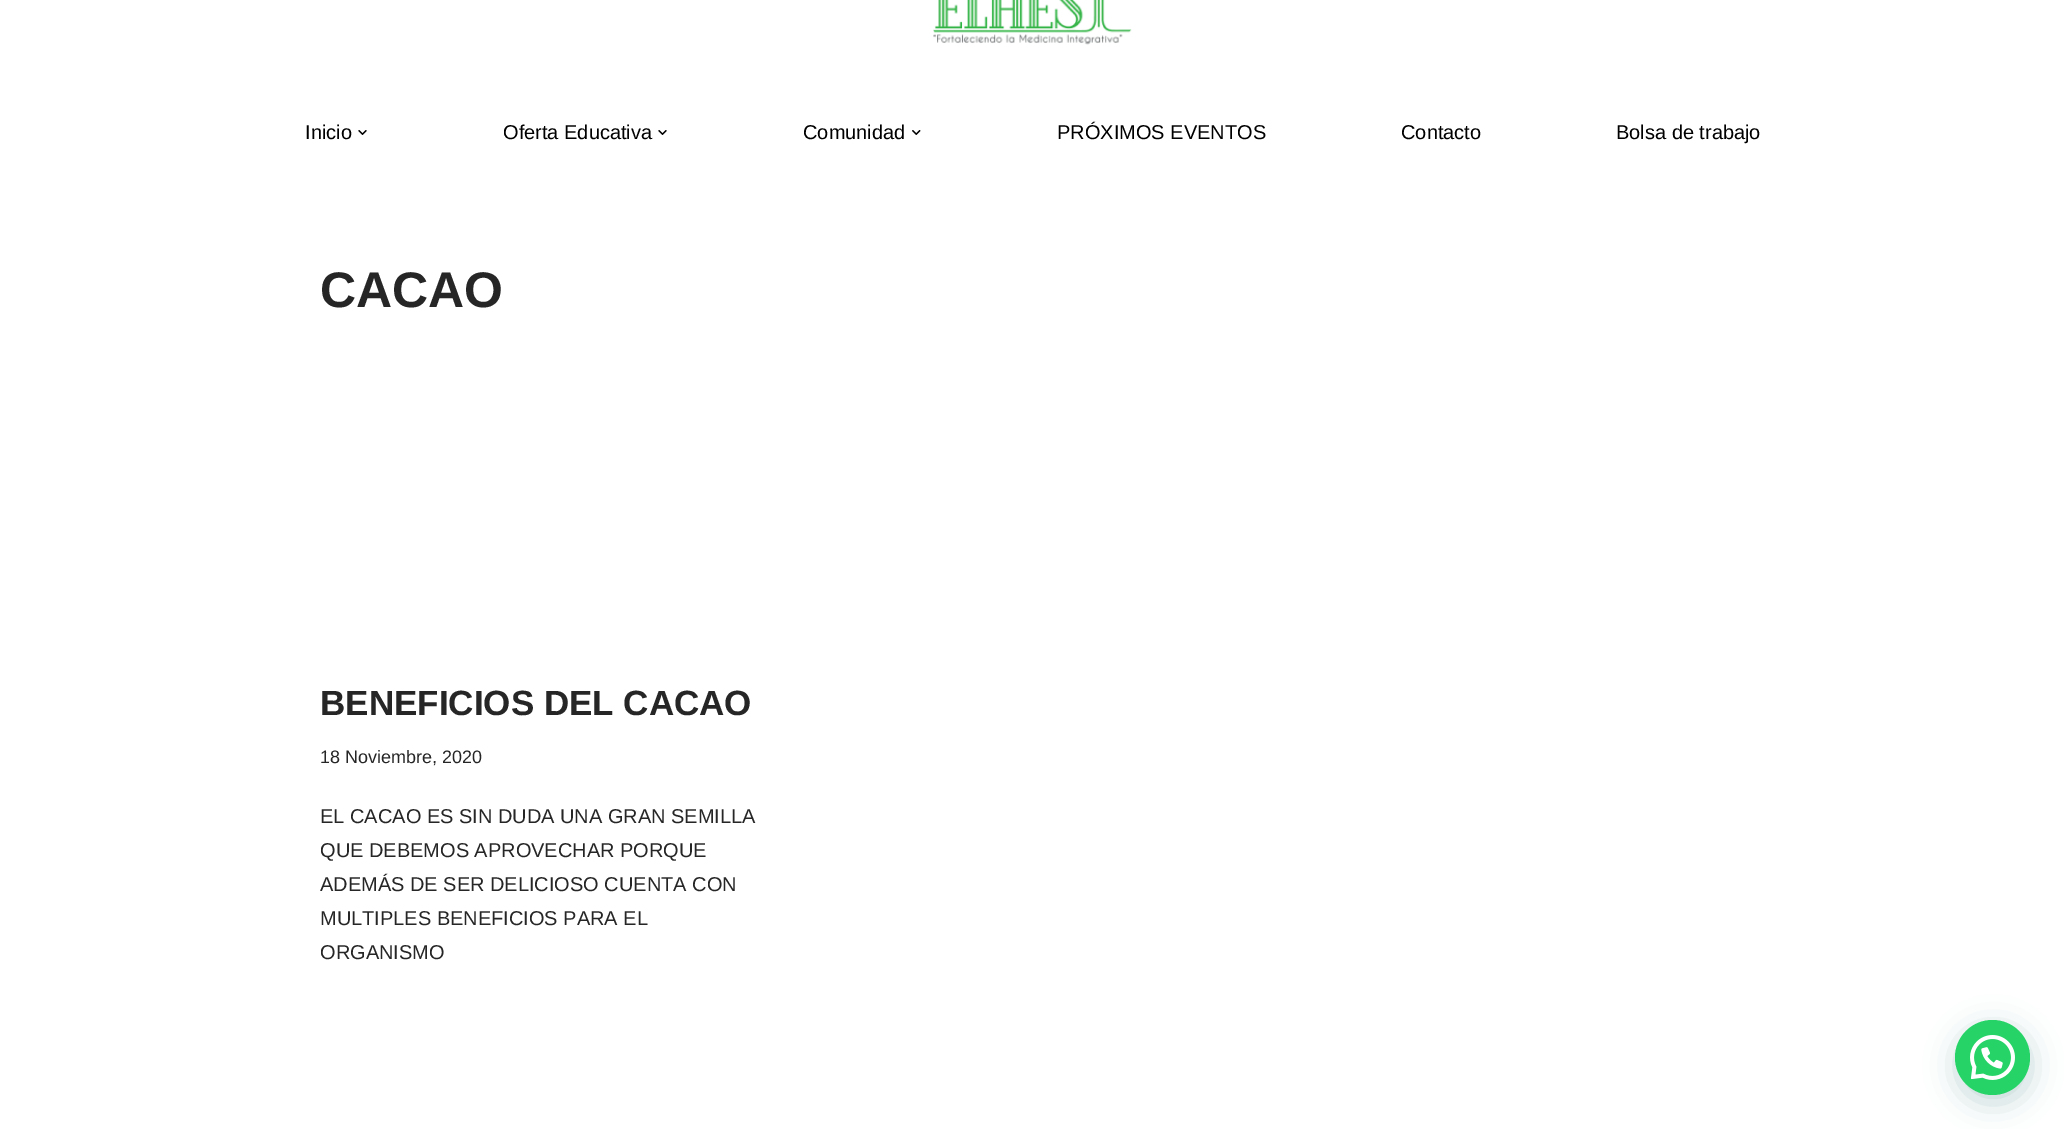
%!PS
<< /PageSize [2064 1129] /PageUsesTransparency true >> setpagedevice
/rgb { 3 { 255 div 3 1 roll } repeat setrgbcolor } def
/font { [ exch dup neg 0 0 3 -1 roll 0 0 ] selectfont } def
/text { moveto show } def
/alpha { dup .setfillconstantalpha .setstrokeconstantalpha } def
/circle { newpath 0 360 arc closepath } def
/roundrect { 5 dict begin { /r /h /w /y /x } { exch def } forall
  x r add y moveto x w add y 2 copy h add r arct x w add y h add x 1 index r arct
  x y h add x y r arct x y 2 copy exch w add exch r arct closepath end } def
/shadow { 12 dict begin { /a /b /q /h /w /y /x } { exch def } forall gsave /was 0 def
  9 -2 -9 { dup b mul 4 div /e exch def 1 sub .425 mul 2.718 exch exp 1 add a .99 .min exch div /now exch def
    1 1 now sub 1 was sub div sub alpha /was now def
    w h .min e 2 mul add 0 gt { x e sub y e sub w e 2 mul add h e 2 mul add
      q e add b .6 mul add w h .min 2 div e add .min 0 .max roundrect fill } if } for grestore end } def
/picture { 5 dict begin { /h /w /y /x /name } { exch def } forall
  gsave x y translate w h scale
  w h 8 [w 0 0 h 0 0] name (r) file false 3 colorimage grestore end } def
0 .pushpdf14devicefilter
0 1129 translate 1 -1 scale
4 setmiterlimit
255 255 255 rgb
0 0 2064 1129 rectfill
(img_01.rgb) 933 0 199 45 picture
(img_02.rgb) 358 130 9 5 picture
(img_02.rgb) 658 130 9 5 picture
(img_03.rgb) 912 130 9 5 picture
7 94 84 rgb
1956 1028 75 75 37.5 15 0.24 shadow
37 211 102 rgb
1992.5 1057.5 37.5 circle fill
(img_04.rgb) 1970 1035 45 45 picture
/LiberationSans-Regular 20 font
0 0 0 rgb
(Inicio) 305 139 text
(Oferta Educativa) 503 139 text
(Comunidad) 803 139 text
(PRÓXIMOS EVENTOS) 1057 139 text
(Contacto) 1401 139 text
(Bolsa de trabajo) 1616 139 text
/LiberationSans-Bold 50 font
39 38 38 rgb
(CACAO) 320 307 text
/LiberationSans-Bold 35 font
(BENEFICIOS DEL CACAO) 320 715 text
/LiberationSans-Regular 18 font
(18 Noviembre, 2020) 320 763 text
/LiberationSans-Regular 20 font
(EL CACAO ES SIN DUDA UNA GRAN SEMILLA) 320 823 text
(QUE DEBEMOS APROVECHAR PORQUE) 320 857 text
(ADEMÁS DE SER DELICIOSO CUENTA CON) 320 891 text
(MULTIPLES BENEFICIOS PARA EL) 320 925 text
(ORGANISMO) 320 959 text
.poppdf14devicefilter showpage
